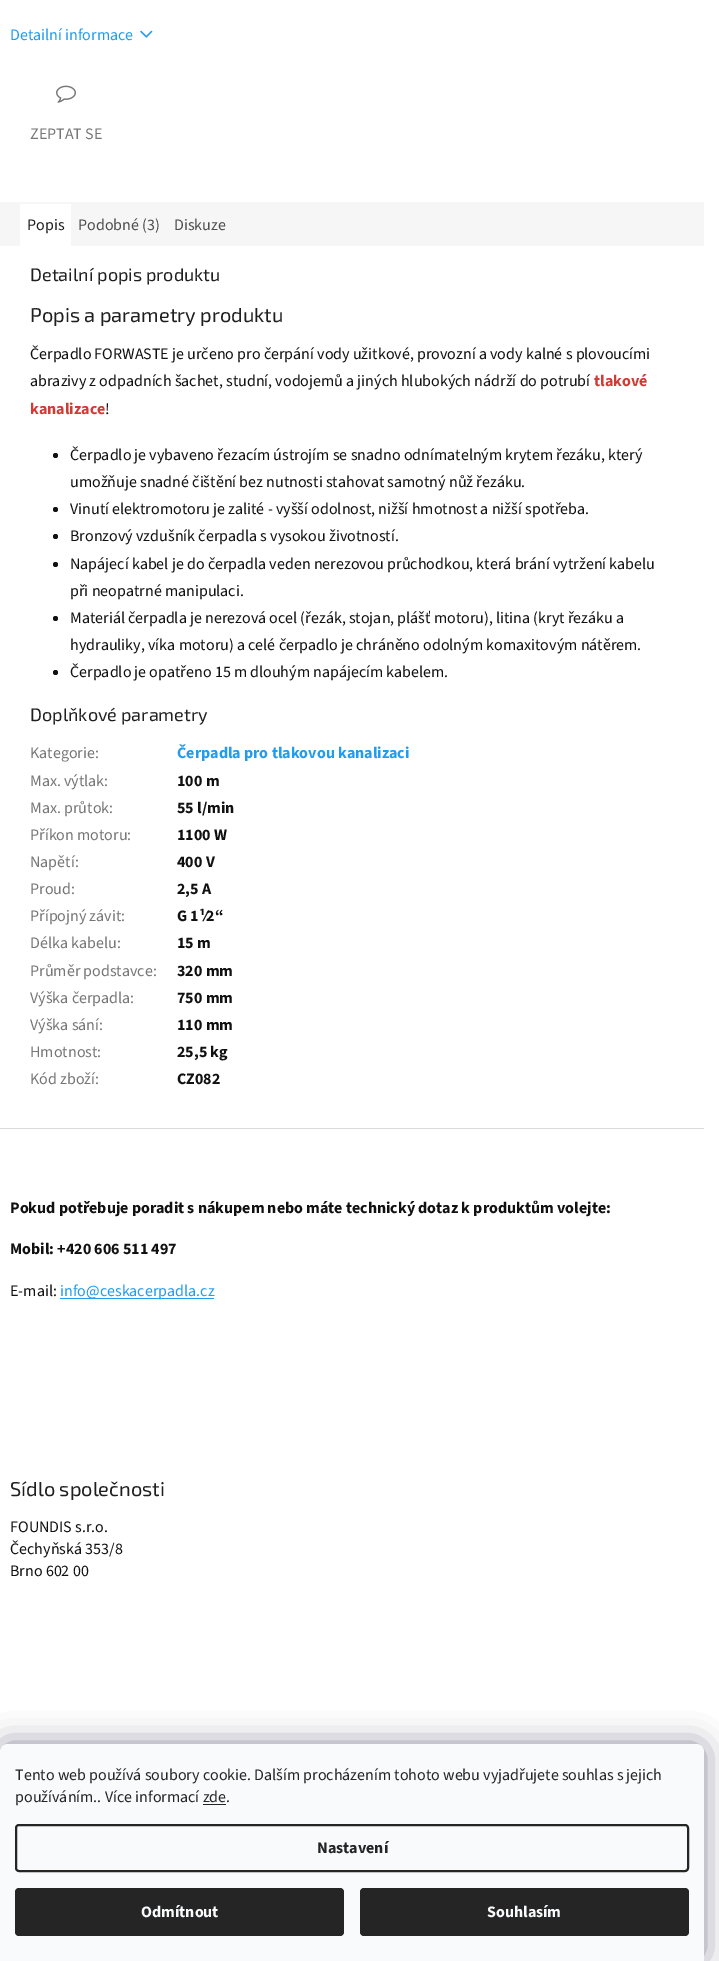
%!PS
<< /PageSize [719 1961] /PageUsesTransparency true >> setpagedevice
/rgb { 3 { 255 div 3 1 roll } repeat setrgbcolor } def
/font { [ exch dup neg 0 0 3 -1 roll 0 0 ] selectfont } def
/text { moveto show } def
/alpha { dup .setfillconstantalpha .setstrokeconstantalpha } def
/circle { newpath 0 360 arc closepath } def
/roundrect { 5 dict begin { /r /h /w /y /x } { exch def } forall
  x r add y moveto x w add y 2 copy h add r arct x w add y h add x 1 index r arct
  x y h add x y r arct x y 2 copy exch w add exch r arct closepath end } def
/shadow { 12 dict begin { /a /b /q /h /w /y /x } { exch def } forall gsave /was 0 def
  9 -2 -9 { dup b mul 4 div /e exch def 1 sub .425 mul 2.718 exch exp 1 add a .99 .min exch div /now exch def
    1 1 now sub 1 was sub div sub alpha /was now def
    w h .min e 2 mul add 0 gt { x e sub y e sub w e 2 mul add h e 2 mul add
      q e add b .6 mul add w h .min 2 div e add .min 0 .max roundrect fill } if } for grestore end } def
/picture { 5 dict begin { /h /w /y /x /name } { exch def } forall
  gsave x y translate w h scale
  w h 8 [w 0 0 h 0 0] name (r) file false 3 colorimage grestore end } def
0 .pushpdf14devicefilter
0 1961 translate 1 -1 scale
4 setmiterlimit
255 255 255 rgb
0 0 719 1961 rectfill
(img_01.rgb) 140 30 13 8 picture
(img_02.rgb) 56 85 20 18 picture
246 246 246 rgb
0 202 704 44 rectfill
255 255 255 rgb
20 204 51 42 rectfill
17 17 17 rgb
55.5 455.5 2.5 circle fill
55.5 509.5 2.5 circle fill
55.5 536.5 2.5 circle fill
55.5 564.5 2.5 circle fill
55.5 618.5 2.5 circle fill
55.5 672.5 2.5 circle fill
218 218 218 rgb
0 1128 704 1 rectfill
35 156 235 rgb
60 1298 154 1 rectfill
27 25 57 rgb
0 1744 704 217 8 15 0.5 shadow
248 250 251 rgb
8 1744 moveto 688 0 rlineto 4.5 0 8 3.5 8 8 rcurveto 0 209 rlineto -704 0 rlineto 0 -209 rlineto 0 -4.5 3.5 -8 8 -8 rcurveto closepath fill
37 37 37 rgb
203 1804 23 1 rectfill
2 setlinewidth
16 1825 672 46 3 roundrect stroke
15 1888 329 48 4 roundrect fill
360 1888 329 48 4 roundrect fill
/SourceSans3-Regular 16 font
35 156 235 rgb
(Detailní informace) 10 40 text
118 118 118 rgb
(ZEPTAT SE) 30 139 text
31 31 31 rgb
(Popis) 27 230 text
77 77 77 rgb
(Podobné \(3\)) 78 230 text
(Diskuze) 174 230 text
/Exo2-Regular 18 font
31 31 31 rgb
(Detailní popis produktu) 30 281 text
/Exo2-Regular 20 font
(Popis a parametry produktu) 30 322 text
/SourceSans3-Regular 16 font
17 17 17 rgb
(Čerpadlo FORWASTE je určeno pro čerpání vody užitkové, provozní a vody kalné s plovoucími) 30 359 text
(abrazivy z odpadních šachet, studní, vodojemů a jiných hlubokých nádrží do potrubí) 30 386 text
/SourceSans3-Bold 16 font
211 58 54 rgb
(tlakové) 594 386 text
(kanalizace) 30 414 text
/SourceSans3-Regular 16 font
17 17 17 rgb
(!) 105 414 text
(Čerpadlo je vybaveno řezacím ústrojím se snadno odnímatelným krytem řezáku, který) 70 460 text
(umožňuje snadné čištění bez nutnosti stahovat samotný nůž řezáku.) 70 487 text
(Vinutí elektromotoru je zalité - vyšší odolnost, nižší hmotnost a nižší spotřeba.) 70 514 text
(Bronzový vzdušník čerpadla s vysokou životností.) 70 541 text
(Napájecí kabel je do čerpadla veden nerezovou průchodkou, která brání vytržení kabelu) 70 569 text
(při neopatrné manipulaci.) 70 596 text
(Materiál čerpadla je nerezová ocel \(řezák, stojan, plášť motoru\), litina \(kryt řezáku a) 70 623 text
(hydrauliky, víka motoru\) a celé čerpadlo je chráněno odolným komaxitovým nátěrem.) 70 650 text
(Čerpadlo je opatřeno 15 m dlouhým napájecím kabelem.) 70 677 text
/Exo2-Regular 18 font
31 31 31 rgb
(Doplňkové parametry) 30 721 text
/SourceSans3-Regular 16 font
118 118 118 rgb
(Kategorie:) 30 758 text
/SourceSans3-Bold 16 font
35 156 235 rgb
(Čerpadla pro tlakovou kanalizaci) 177 758 text
/SourceSans3-Regular 16 font
118 118 118 rgb
(Max. výtlak:) 30 786 text
/SourceSans3-Bold 16 font
17 17 17 rgb
(100 m) 177 786 text
/SourceSans3-Regular 16 font
118 118 118 rgb
(Max. průtok:) 30 813 text
/SourceSans3-Bold 16 font
17 17 17 rgb
(55 l/min) 177 813 text
/SourceSans3-Regular 16 font
118 118 118 rgb
(Příkon motoru:) 30 840 text
/SourceSans3-Bold 16 font
17 17 17 rgb
(1100 W) 177 840 text
/SourceSans3-Regular 16 font
118 118 118 rgb
(Napětí:) 30 867 text
/SourceSans3-Bold 16 font
17 17 17 rgb
(400 V) 177 867 text
/SourceSans3-Regular 16 font
118 118 118 rgb
(Proud:) 30 894 text
/SourceSans3-Bold 16 font
17 17 17 rgb
(2,5 A) 177 894 text
/SourceSans3-Regular 16 font
118 118 118 rgb
(Přípojný závit:) 30 921 text
/SourceSans3-Bold 16 font
17 17 17 rgb
(G 1¹⁄2“) 177 921 text
/SourceSans3-Regular 16 font
118 118 118 rgb
(Délka kabelu:) 30 948 text
/SourceSans3-Bold 16 font
17 17 17 rgb
(15 m) 177 948 text
/SourceSans3-Regular 16 font
118 118 118 rgb
(Průměr podstavce:) 30 976 text
/SourceSans3-Bold 16 font
17 17 17 rgb
(320 mm) 177 976 text
/SourceSans3-Regular 16 font
118 118 118 rgb
(Výška čerpadla:) 30 1003 text
/SourceSans3-Bold 16 font
17 17 17 rgb
(750 mm) 177 1003 text
/SourceSans3-Regular 16 font
118 118 118 rgb
(Výška sání:) 30 1030 text
/SourceSans3-Bold 16 font
17 17 17 rgb
(110 mm) 177 1030 text
/SourceSans3-Regular 16 font
118 118 118 rgb
(Hmotnost:) 30 1057 text
/SourceSans3-Bold 16 font
17 17 17 rgb
(25,5 kg) 177 1057 text
/SourceSans3-Regular 16 font
118 118 118 rgb
(Kód zboží:) 30 1084 text
/SourceSans3-Bold 16 font
17 17 17 rgb
(CZ082) 177 1084 text
(Pokud potřebuje poradit s nákupem nebo máte technický dotaz k produktům volejte:) 10 1213 text
(Mobil: +420 606 511 497) 10 1254 text
/SourceSans3-Regular 16 font
(E-mail:) 10 1296 text
35 156 235 rgb
(info@ceskacerpadla.cz) 60 1296 text
/Exo2-Regular 20 font
31 31 31 rgb
(Sídlo společnosti) 10 1496 text
/SourceSans3-Regular 16 font
17 17 17 rgb
(FOUNDIS s.r.o.) 10 1532 text
(Čechyňská 353/8) 10 1554 text
(Brno 602 00) 10 1576 text
37 37 37 rgb
(Tento web používá soubory cookie. Dalším procházením tohoto webu vyjadřujete souhlas s jejich) 15 1780 text
(používáním.. Více informací zde.) 15 1802 text
/SourceSans3-Bold 16 font
(Nastavení) 317 1853 text
248 250 251 rgb
(Odmítnout) 141 1917 text
(Souhlasím) 487 1917 text
.poppdf14devicefilter showpage
